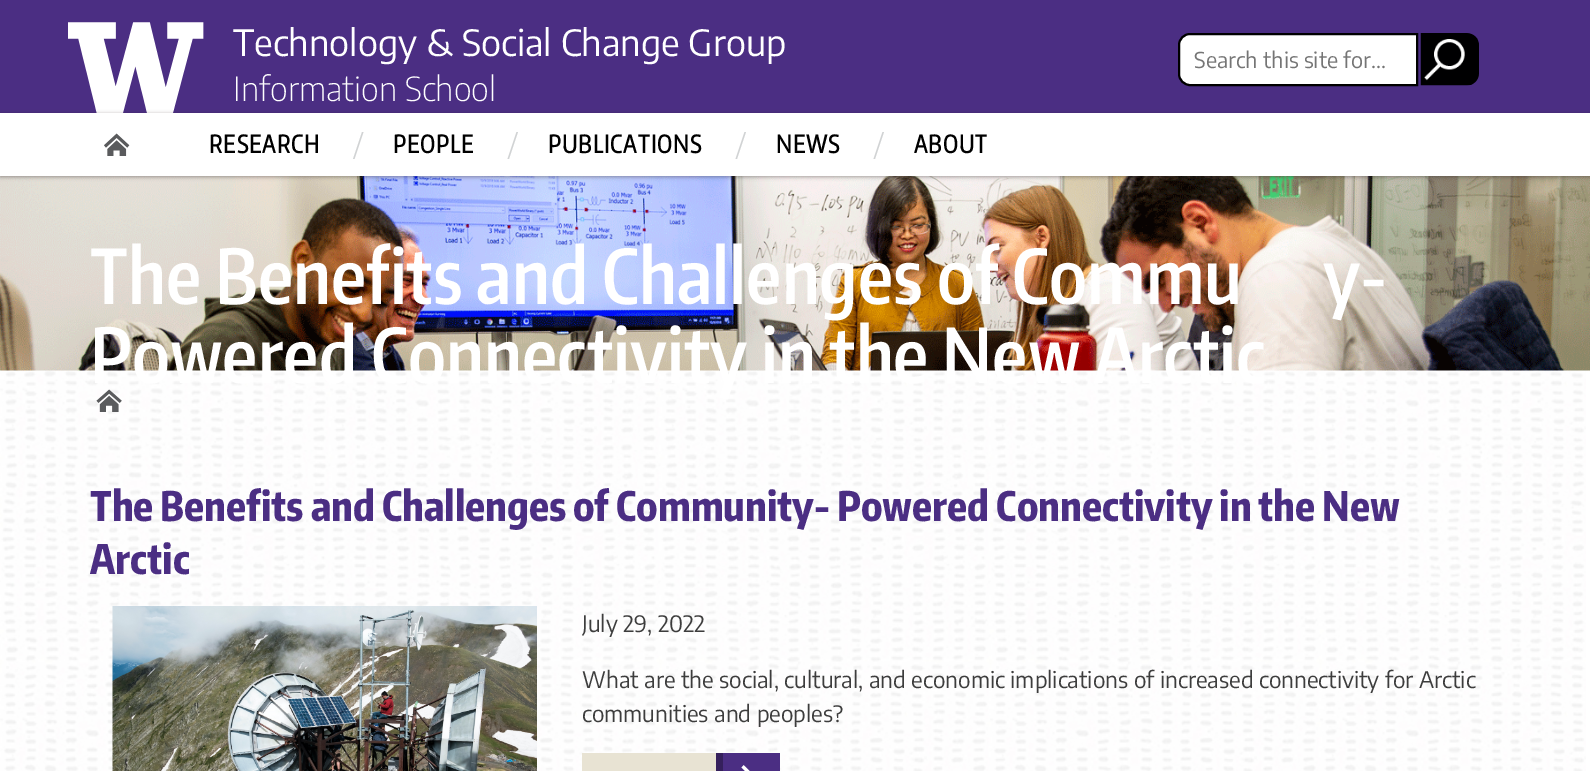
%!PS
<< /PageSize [1590 771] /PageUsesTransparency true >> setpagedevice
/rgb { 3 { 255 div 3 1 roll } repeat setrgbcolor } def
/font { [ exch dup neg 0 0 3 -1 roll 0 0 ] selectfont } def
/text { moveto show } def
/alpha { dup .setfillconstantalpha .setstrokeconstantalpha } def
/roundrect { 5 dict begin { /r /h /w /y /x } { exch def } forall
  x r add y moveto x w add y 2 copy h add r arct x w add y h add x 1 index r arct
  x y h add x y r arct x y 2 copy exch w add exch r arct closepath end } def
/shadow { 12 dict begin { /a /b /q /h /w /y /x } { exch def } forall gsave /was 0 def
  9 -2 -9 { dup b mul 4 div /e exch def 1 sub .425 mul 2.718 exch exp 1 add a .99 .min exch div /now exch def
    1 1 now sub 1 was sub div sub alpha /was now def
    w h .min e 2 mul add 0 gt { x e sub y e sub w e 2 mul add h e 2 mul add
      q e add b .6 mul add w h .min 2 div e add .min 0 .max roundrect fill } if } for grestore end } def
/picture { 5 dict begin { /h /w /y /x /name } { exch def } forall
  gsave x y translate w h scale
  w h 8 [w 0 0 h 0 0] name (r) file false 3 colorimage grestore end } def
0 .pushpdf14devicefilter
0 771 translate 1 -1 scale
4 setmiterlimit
255 255 255 rgb
0 0 1590 771 rectfill
(img_01.rgb) 0 370 1586 401 picture
75 46 131 rgb
0 0 1590 113 rectfill
(img_02.rgb) 68 22 136 91 picture
255 255 255 rgb
1190 34 moveto 227 0 rlineto 0 51 rlineto -227 0 rlineto -6 0 -11 -5 -11 -11 rcurveto 0 -29 rlineto 0 -6 5 -11 11 -11 rcurveto closepath gsave fill grestore
0 0 0 rgb
2 setlinewidth
stroke
(img_03.rgb) 1420 33 59 53 picture
(img_05.rgb) 0 176 1590 195 picture
34 25 25 rgb
0 114 1590 63 0 2 0.4 shadow
255 255 255 rgb
0 113 1590 63 rectfill
(img_04.rgb) 104 133 26 23 picture
209 211 212 rgb
362 132 moveto -9 27 rlineto 1.5 0 rlineto 9 -27 rlineto closepath fill
516.5 132 moveto -9 27 rlineto 1.5 0 rlineto 9 -27 rlineto closepath fill
744.5 132 moveto -9 27 rlineto 1.5 0 rlineto 9 -27 rlineto closepath fill
882.5 132 moveto -9 27 rlineto 1.5 0 rlineto 9 -27 rlineto closepath fill
(img_07.rgb) 112 606 425 165 picture
232 227 211 rgb
582 753 134 18 rectfill
75 46 131 rgb
723 753 57 18 rectfill
53 32 92 rgb
716 753 7 18 rectfill
(img_08.rgb) 741 765 9 6 picture
/EncodeSansCondensed-Regular 36 font
255 255 255 rgb
(Technology & Social Change Group) 233 56 text
/EncodeSansCondensed-ExtraLight 33 font
(Information School) 233 101 text
/EncodeSansCondensed-Regular 21.75 font
117 117 117 rgb
(Search this site for...) 1194 68 text
/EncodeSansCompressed-Bold 24 font
0 0 0 rgb
209 153 moveto 1.25 0 (RESEARCH) ashow
393 153 moveto 1.25 0 (PEOPLE) ashow
548 153 moveto 1.25 0 (PUBLICATIONS) ashow
776 153 moveto 1.25 0 (NEWS) ashow
914 153 moveto 1.25 0 (ABOUT) ashow
/EncodeSansCompressed-SemiBold 75 font
255 255 255 rgb
(The Benefits and Challenges of Commu) 90 304 text
(y-) 1323 304 text
(Powered Connectivity in the New Arctic) 90 383 text
(img_06.rgb) 96 389 26 23 picture
/EncodeSansCompressed-ExtraBold 40.5 font
75 46 131 rgb
(The Benefits and Challenges of Community- Powered Connectivity in the New) 90 521 text
(Arctic) 90 574 text
/EncodeSansCondensed-Regular 22.5 font
61 61 61 rgb
(July 29, 2022) 582 632 text
(What are the social, cultural, and economic implications of increased connectivity for Arctic) 582 688 text
(communities and peoples?) 582 722 text
.poppdf14devicefilter showpage
